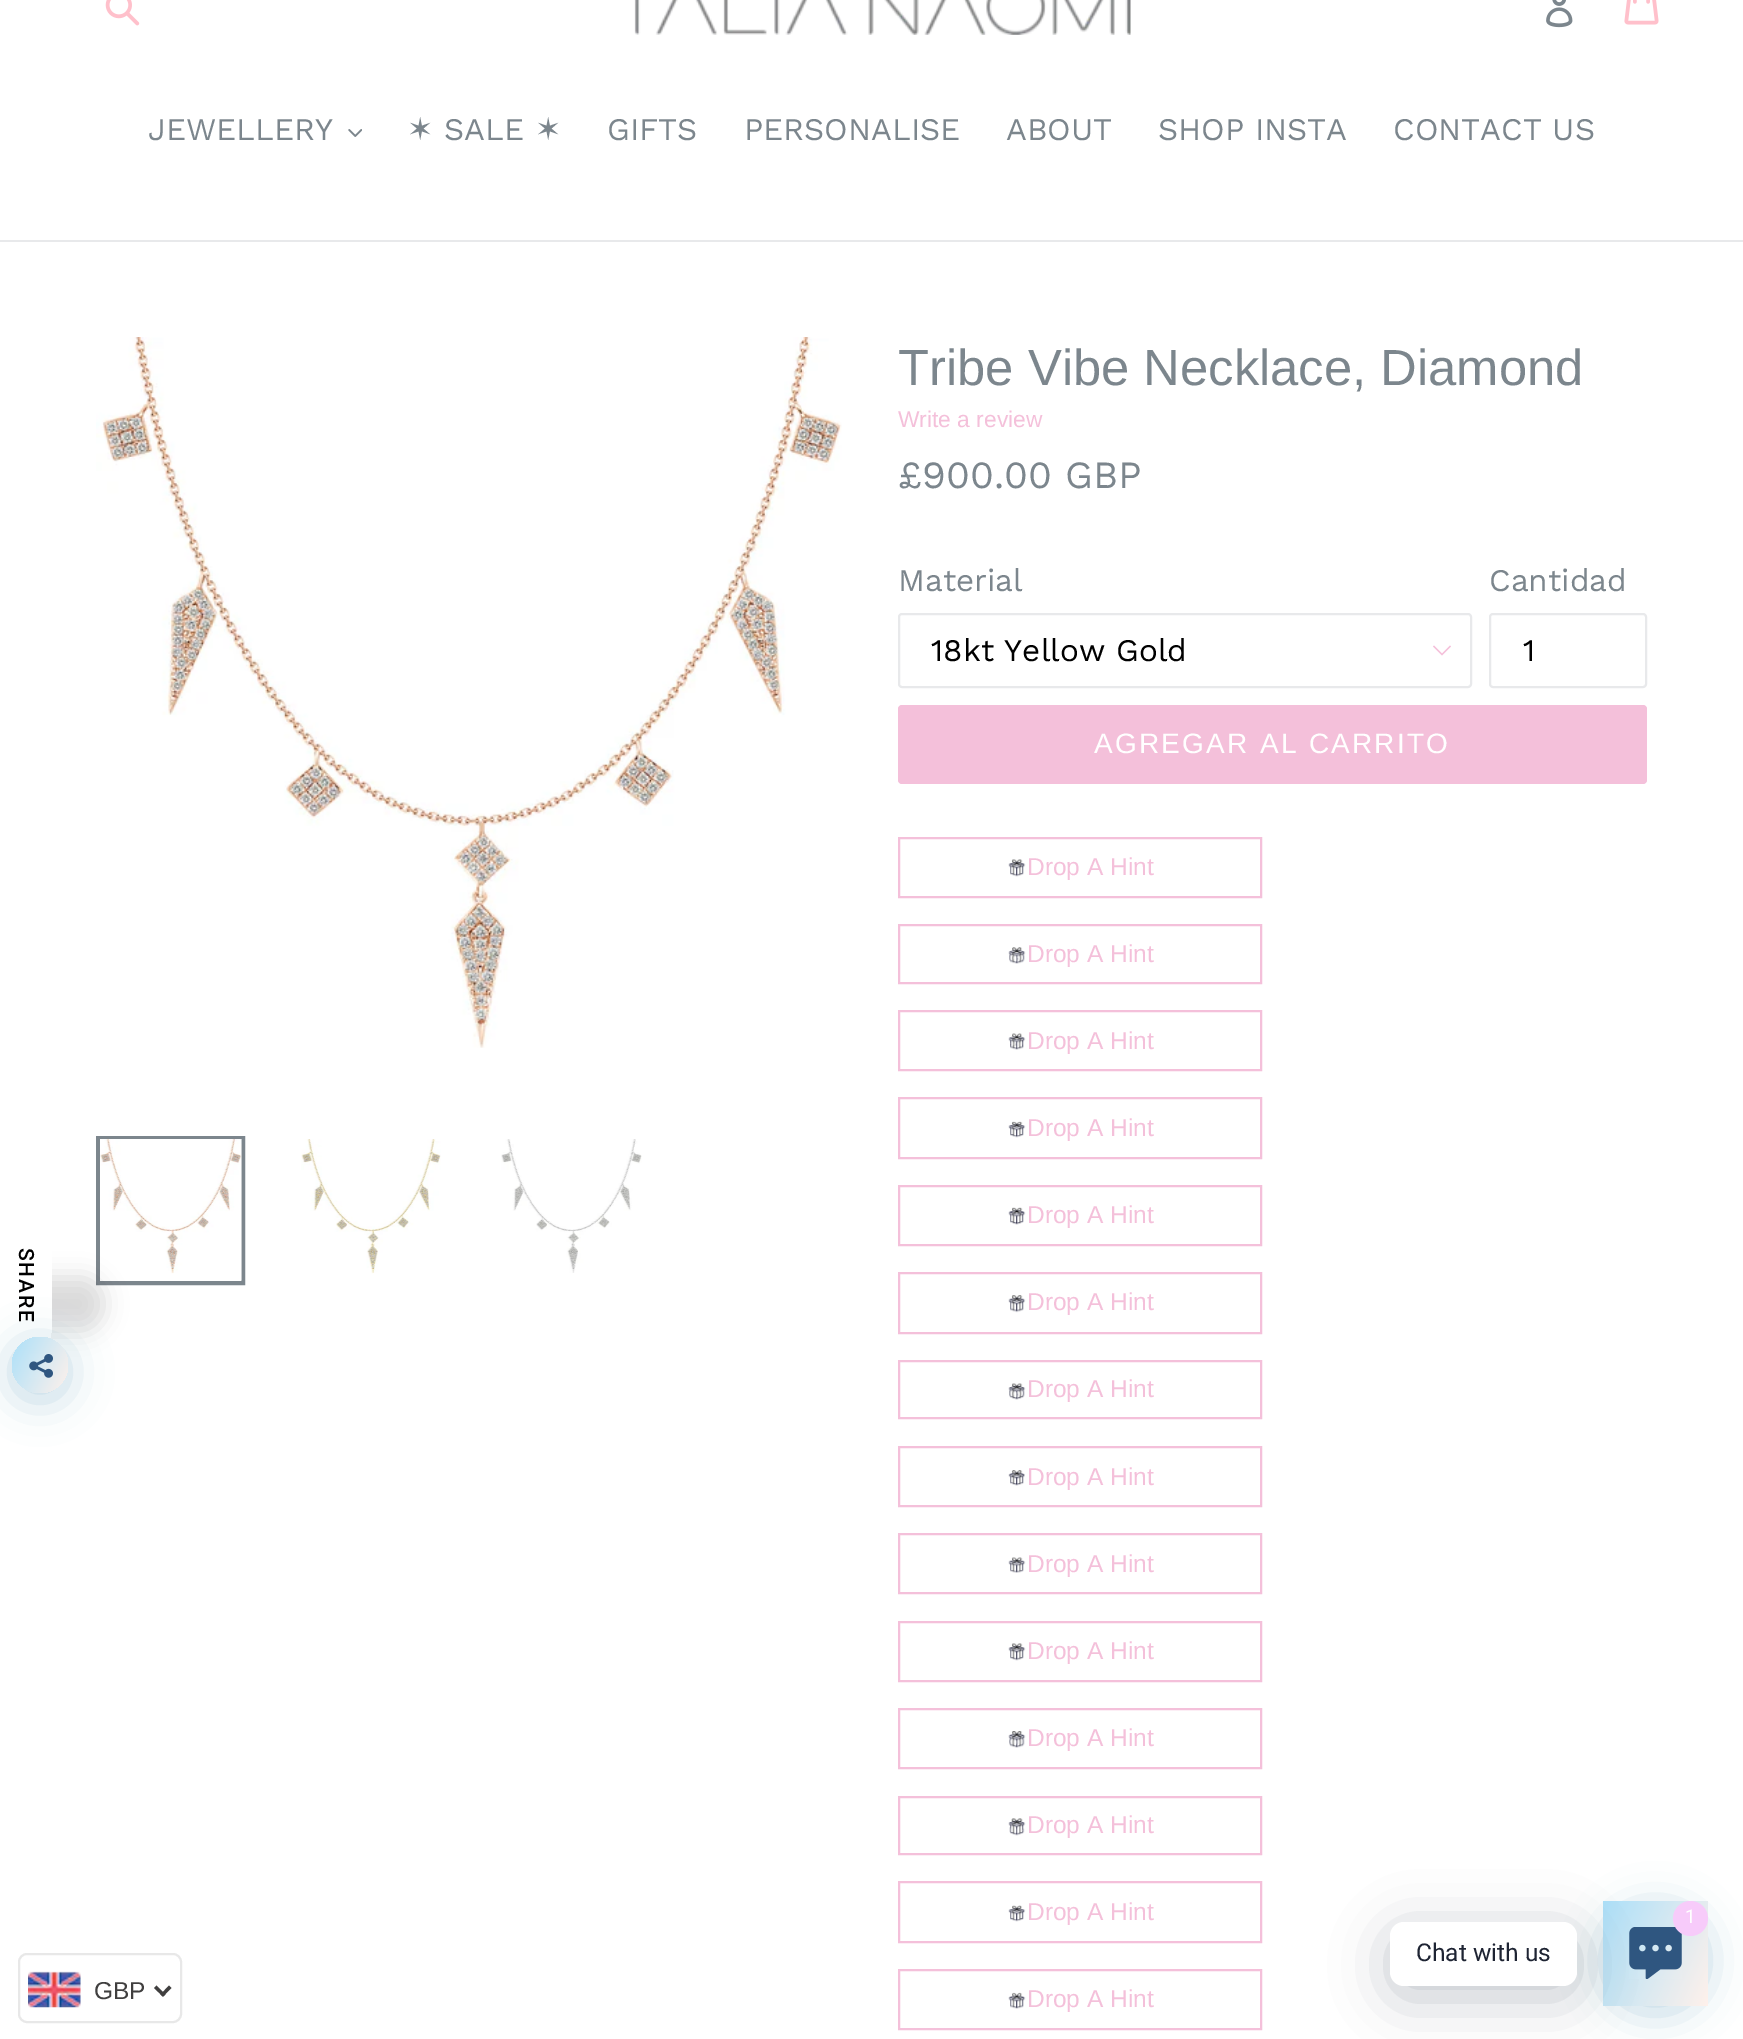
%!PS
<< /PageSize [1743 2039] /PageUsesTransparency true >> setpagedevice
/rgb { 3 { 255 div 3 1 roll } repeat setrgbcolor } def
/font { [ exch dup neg 0 0 3 -1 roll 0 0 ] selectfont } def
/text { moveto show } def
/alpha { dup .setfillconstantalpha .setstrokeconstantalpha } def
/circle { newpath 0 360 arc closepath } def
/roundrect { 5 dict begin { /r /h /w /y /x } { exch def } forall
  x r add y moveto x w add y 2 copy h add r arct x w add y h add x 1 index r arct
  x y h add x y r arct x y 2 copy exch w add exch r arct closepath end } def
/shadow { 12 dict begin { /a /b /q /h /w /y /x } { exch def } forall gsave /was 0 def
  9 -2 -9 { dup b mul 4 div /e exch def 1 sub .425 mul 2.718 exch exp 1 add a .99 .min exch div /now exch def
    1 1 now sub 1 was sub div sub alpha /was now def
    w h .min e 2 mul add 0 gt { x e sub y e sub w e 2 mul add h e 2 mul add
      q e add b .6 mul add w h .min 2 div e add .min 0 .max roundrect fill } if } for grestore end } def
/picture { 5 dict begin { /h /w /y /x /name } { exch def } forall
  gsave x y translate w h scale
  w h 8 [w 0 0 h 0 0] name (r) file false 3 colorimage grestore end } def
0 .pushpdf14devicefilter
0 2039 translate 1 -1 scale
4 setmiterlimit
255 255 255 rgb
0 0 1743 2039 rectfill
(img_01.rgb) 105 0 35 26 picture
(img_02.rgb) 634 0 497 35 picture
(img_03.rgb) 1546 0 27 28 picture
(img_04.rgb) 1624 0 35 25 picture
232 233 235 rgb
0 240 1743 2 rectfill
(img_05.rgb) 348 129 14 8 picture
(img_06.rgb) 96 337 746 711 picture
124 134 141 rgb
4 setlinewidth
98 1138 145 145 rectstroke
(img_07.rgb) 100 1139 142 142 picture
(img_08.rgb) 301 1139 140 135 picture
(img_09.rgb) 501 1139 141 134 picture
244 192 218 rgb
1442 655.5 moveto -9 -9 rlineto 1 -1 rlineto 8 8 rlineto 8 -8 rlineto 1 1 rlineto closepath fill
232 233 235 rgb
2 setlinewidth
899 614 572 73 3 roundrect stroke
1490 614 156 73 3 roundrect stroke
244 192 218 rgb
898 705 749 79 4 roundrect fill
899 838 362 59 rectstroke
(img_10.rgb) 1008 859 18 18 picture
899 925 362 58 rectstroke
(img_11.rgb) 1008 947 18 17 picture
899 1011 362 59 rectstroke
(img_12.rgb) 1008 1033 18 17 picture
899 1098 362 60 rectstroke
(img_13.rgb) 1008 1121 18 17 picture
899 1186 362 59 rectstroke
(img_14.rgb) 1008 1207 18 18 picture
899 1273 362 60 rectstroke
(img_15.rgb) 1008 1295 18 18 picture
899 1361 362 57 rectstroke
(img_16.rgb) 1008 1383 18 17 picture
899 1447 362 59 rectstroke
(img_17.rgb) 1008 1470 17 16 picture
899 1534 362 59 rectstroke
(img_18.rgb) 1008 1557 18 16 picture
899 1622 362 59 rectstroke
(img_10.rgb) 1008 1643 18 18 picture
899 1709 362 59 rectstroke
(img_19.rgb) 1008 1731 18 17 picture
899 1797 362 57 rectstroke
(img_20.rgb) 1008 1818 18 18 picture
899 1882 362 60 rectstroke
(img_21.rgb) 1008 1905 18 17 picture
899 1970 362 59 rectstroke
(img_22.rgb) 1008 1992 18 17 picture
gsave
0 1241 moveto 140 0 rlineto 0 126 rlineto -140 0 rlineto closepath 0 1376 moveto 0 -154.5 rlineto 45.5 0 rlineto 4 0 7 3.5 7 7 rcurveto 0 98.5 rlineto 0 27 -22 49 -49 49 rcurveto closepath eoclip newpath
0 0 0 rgb
-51 1278 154 52 49 12 0.15 shadow
grestore
130 178 201 rgb
12 1344 56 56 28 21 0.5 shadow
gsave 40 1365 28 circle clip newpath
<< /ShadingType 2 /ColorSpace /DeviceRGB /Coords [6.5 1349 74 1381] /Extend [true true] /Function << /FunctionType 2 /Domain [0 1] /C0 [0.675 0.878 0.976] /C1 [1 0.945 0.922] /N 1 >> >> shfill grestore
(img_23.rgb) 29 1354 24 24 picture
1603 1908 105 105 52.5 21 0.5 shadow
gsave 1603 1901 moveto 105 0 rlineto 0 105 rlineto -105 0 rlineto closepath clip newpath
<< /ShadingType 2 /ColorSpace /DeviceRGB /Coords [1592 1924 1719 1982] /Extend [true true] /Function << /FunctionType 2 /Domain [0 1] /C0 [0.675 0.878 0.976] /C1 [1 0.945 0.922] /N 1 >> >> shfill grestore
0 18 46 rgb
1390 1932 187 65 14 28 0.24 shadow
(img_24.rgb) 1629 1927 53 52 picture
247 203 250 rgb
1690.5 1918.5 17.5 circle fill
255 255 255 rgb
1390 1922 187 64 14 roundrect fill
232 232 232 rgb
19 1954 162 68 8 roundrect stroke
(img_25.rgb) 28 1971 53 37 picture
64 63 63 rgb
169 1985.5 moveto 2.5 2.5 rlineto -8.5 8.5 rlineto -2.5 -2 rlineto closepath fill
156.5 1985.5 moveto 9 9 rlineto -2.5 2 rlineto -9 -8.5 rlineto closepath fill
/WorkSans-Regular 31.5 font
124 134 141 rgb
(JEWELLERY) 148 140 text
/DejaVuSans-Regular 31.5 font
(✶) 407 140 text
/WorkSans-Regular 31.5 font
(SALE) 444 140 text
/DejaVuSans-Regular 31.5 font
(✶) 535 140 text
/WorkSans-Regular 31.5 font
(GIFTS) 607 140 text
(PERSONALISE) 744 140 text
(ABOUT) 1006 140 text
(SHOP INSTA) 1158 140 text
(CONTACT US) 1393 140 text
/LiberationSans-Regular 50.75 font
(Tribe Vibe Necklace, Diamond) 898 385 text
/LiberationSans-Regular 22.75 font
244 192 218 rgb
(Write a review) 898 427 text
/WorkSans-Regular 38.5 font
124 134 141 rgb
(£900.00 GBP) 898 488 text
/WorkSans-Regular 31.5 font
(Material) 898 591 text
0 0 0 rgb
(18kt Yellow Gold) 931 661 text
124 134 141 rgb
(Cantidad) 1489 591 text
0 0 0 rgb
(1) 1523 661 text
/LiberationSans-Regular 28 font
255 255 255 rgb
1094 753 moveto 2.25 0 (AGREGAR AL CARRITO) ashow
/LiberationSans-Regular 24.5 font
244 192 218 rgb
(Drop A Hint) 1027 875 text
(Drop A Hint) 1027 962 text
(Drop A Hint) 1027 1049 text
(Drop A Hint) 1027 1136 text
(Drop A Hint) 1027 1223 text
(Drop A Hint) 1027 1310 text
(Drop A Hint) 1027 1397 text
(Drop A Hint) 1027 1485 text
(Drop A Hint) 1027 1572 text
(Drop A Hint) 1027 1659 text
(Drop A Hint) 1027 1746 text
(Drop A Hint) 1027 1833 text
(Drop A Hint) 1027 1920 text
(Drop A Hint) 1027 2007 text
/Roboto-Medium 21 font
0 0 0 rgb
gsave 19 1248 translate 90 rotate 0 0 moveto 1.75 0 (SHARE) ashow grestore
/Roboto-Regular 19 font
255 255 255 rgb
(1) 1685 1923 text
/Roboto-Regular 24.5 font
30 36 51 rgb
(Chat with us) 1416 1961 text
/LiberationSans-Regular 24.5 font
64 63 63 rgb
(GBP) 94 1999 text
.poppdf14devicefilter showpage
